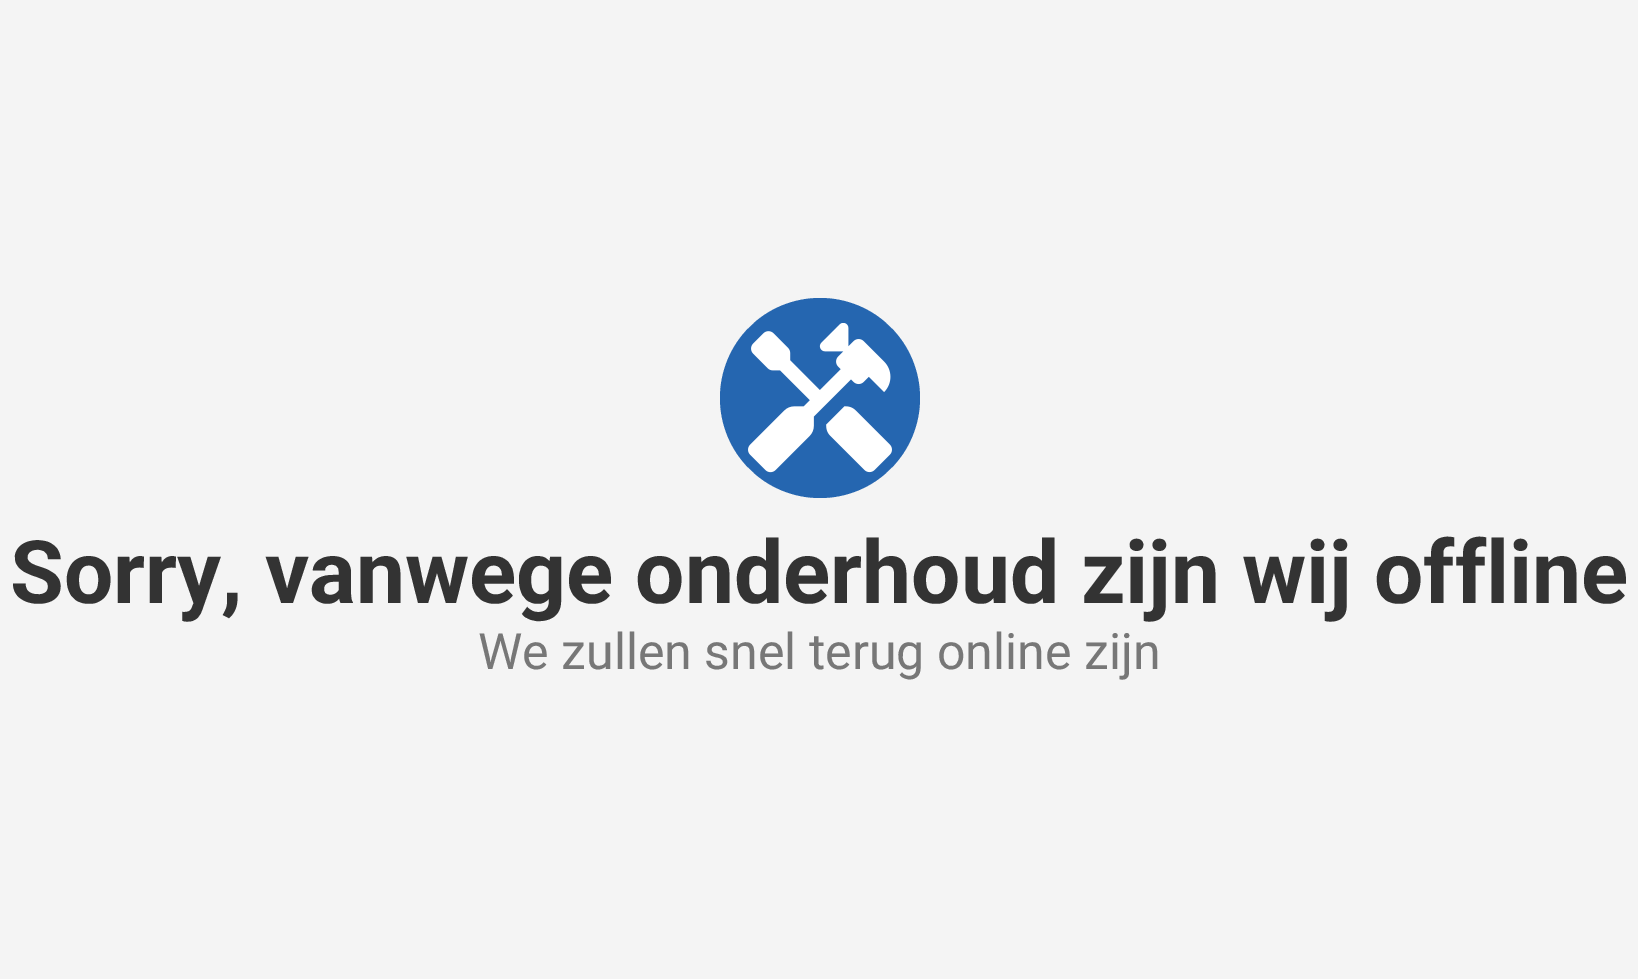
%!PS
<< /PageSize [1638 979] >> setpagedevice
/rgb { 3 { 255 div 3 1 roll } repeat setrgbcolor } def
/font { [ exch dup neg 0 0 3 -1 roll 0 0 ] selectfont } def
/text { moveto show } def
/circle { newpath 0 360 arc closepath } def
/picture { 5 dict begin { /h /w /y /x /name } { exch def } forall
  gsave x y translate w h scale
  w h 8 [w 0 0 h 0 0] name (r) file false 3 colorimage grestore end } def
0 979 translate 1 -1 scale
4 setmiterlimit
244 244 244 rgb
0 0 1638 979 rectfill
37 102 176 rgb
820 398 100 circle fill
(img_01.rgb) 748 323 144 150 picture
/Roboto-Bold 87.5 font
51 51 51 rgb
(Sorry, vanwege onderhoud zijn wij offline) 10 603 text
/Roboto-Regular 50 font
119 119 119 rgb
(We zullen snel terug online zijn) 478 669 text
showpage
